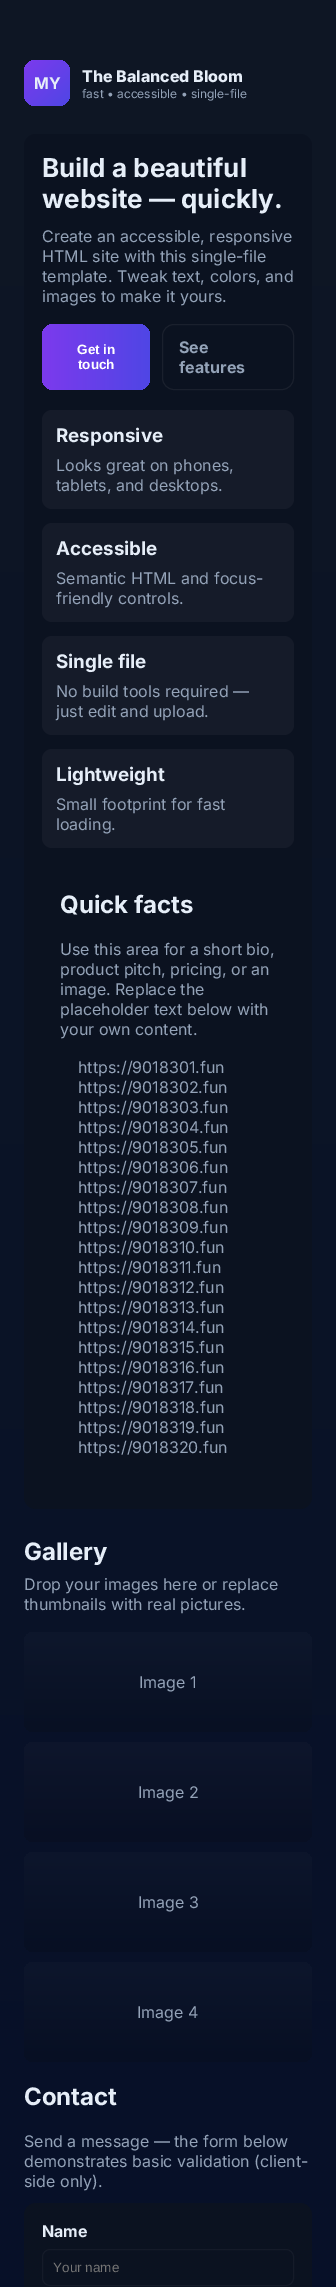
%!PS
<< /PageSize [336 2287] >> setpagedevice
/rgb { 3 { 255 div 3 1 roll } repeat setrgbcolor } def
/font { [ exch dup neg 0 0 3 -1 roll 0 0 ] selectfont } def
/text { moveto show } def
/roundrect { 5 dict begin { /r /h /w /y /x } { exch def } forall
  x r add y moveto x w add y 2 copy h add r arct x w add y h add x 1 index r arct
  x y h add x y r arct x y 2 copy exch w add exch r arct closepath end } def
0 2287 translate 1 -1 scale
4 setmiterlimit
255 255 255 rgb
0 0 336 2287 rectfill
gsave 0 0 moveto 336 0 rlineto 0 2287 rlineto -336 0 rlineto closepath clip newpath
<< /ShadingType 2 /ColorSpace /DeviceRGB /Coords [168 0 168 2287] /Extend [true true] /Function << /FunctionType 2 /Domain [0 1] /C0 [0.059 0.09 0.141] /C1 [0.027 0.063 0.161] /N 1 >> >> shfill grestore
gsave 24 60 46 46 12 roundrect clip newpath
<< /ShadingType 2 /ColorSpace /DeviceRGB /Coords [24 60 70 106] /Extend [true true] /Function << /FunctionType 2 /Domain [0 1] /C0 [0.486 0.227 0.929] /C1 [0.31 0.275 0.898] /N 1 >> >> shfill grestore
11 18 32 rgb
24 134 288 1375 12 roundrect fill
gsave 42 324 108 66 12 roundrect clip newpath
<< /ShadingType 2 /ColorSpace /DeviceRGB /Coords [42 357 150 357] /Extend [true true] /Function << /FunctionType 2 /Domain [0 1] /C0 [0.486 0.227 0.929] /C1 [0.31 0.275 0.898] /N 1 >> >> shfill grestore
26 32 45 rgb
162.5 324.5 131 65 11.5 roundrect stroke
21 27 41 rgb
42 410 252 99 10 roundrect fill
42 523 252 99 10 roundrect fill
42 636 252 99 10 roundrect fill
42 749 252 99 10 roundrect fill
gsave 24 1632 288 100 10 roundrect clip newpath
<< /ShadingType 2 /ColorSpace /DeviceRGB /Coords [168 1632 168 1732] /Extend [true true] /Function << /FunctionType 2 /Domain [0 1] /C0 [0.055 0.09 0.173] /C1 [0.031 0.063 0.137] /N 1 >> >> shfill grestore
gsave 24 1742 288 100 10 roundrect clip newpath
<< /ShadingType 2 /ColorSpace /DeviceRGB /Coords [168 1742 168 1842] /Extend [true true] /Function << /FunctionType 2 /Domain [0 1] /C0 [0.055 0.086 0.173] /C1 [0.031 0.059 0.137] /N 1 >> >> shfill grestore
gsave 24 1852 288 100 10 roundrect clip newpath
<< /ShadingType 2 /ColorSpace /DeviceRGB /Coords [168 1852 168 1952] /Extend [true true] /Function << /FunctionType 2 /Domain [0 1] /C0 [0.051 0.086 0.173] /C1 [0.027 0.059 0.137] /N 1 >> >> shfill grestore
gsave 24 1962 288 100 10 roundrect clip newpath
<< /ShadingType 2 /ColorSpace /DeviceRGB /Coords [168 1962 168 2062] /Extend [true true] /Function << /FunctionType 2 /Domain [0 1] /C0 [0.051 0.086 0.173] /C1 [0.027 0.059 0.137] /N 1 >> >> shfill grestore
11 18 32 rgb
24 2203 288 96 12 roundrect fill
21 27 41 rgb
42.5 2249.5 251 36 7.5 roundrect stroke
/Inter-Bold 16 font
230 238 248 rgb
(MY) 34 89 text
/Inter-ExtraBold 16 font
(The Balanced Bloom) 82 82 text
/Inter-Regular 12 font
148 163 184 rgb
(fast • accessible • single-file) 82 98 text
/Inter-Bold 26 font
230 238 248 rgb
(Build a beautiful) 42 177 text
(website — quickly.) 42 208 text
/Inter-Regular 16 font
148 163 184 rgb
(Create an accessible, responsive) 42 242 text
(HTML site with this single-file) 42 262 text
(template. Tweak text, colors, and) 42 282 text
(images to make it yours.) 42 302 text
/LiberationSans-Bold 13.5 font
255 255 255 rgb
(Get in) 77 354 text
(touch) 78 369 text
/Inter-Bold 16 font
148 163 184 rgb
(See) 179 353 text
(features) 179 373 text
/Inter-Bold 18.75 font
230 238 248 rgb
(Responsive) 56 442 text
/Inter-Regular 16 font
148 163 184 rgb
(Looks great on phones,) 56 471 text
(tablets, and desktops.) 56 491 text
/Inter-Bold 18.75 font
230 238 248 rgb
(Accessible) 56 555 text
/Inter-Regular 16 font
148 163 184 rgb
(Semantic HTML and focus-) 56 584 text
(friendly controls.) 56 604 text
/Inter-Bold 18.75 font
230 238 248 rgb
(Single file) 56 668 text
/Inter-Regular 16 font
148 163 184 rgb
(No build tools required —) 56 697 text
(just edit and upload.) 56 717 text
/Inter-Bold 18.75 font
230 238 248 rgb
(Lightweight) 56 781 text
/Inter-Regular 16 font
148 163 184 rgb
(Small footprint for fast) 56 810 text
(loading.) 56 830 text
/Inter-Bold 24 font
230 238 248 rgb
(Quick facts) 60 913 text
/Inter-Regular 16 font
148 163 184 rgb
(Use this area for a short bio,) 60 955 text
(product pitch, pricing, or an) 60 975 text
(image. Replace the) 60 995 text
(placeholder text below with) 60 1015 text
(your own content.) 60 1035 text
(https://9018301.fun) 78 1073 text
(https://9018302.fun) 78 1093 text
(https://9018303.fun) 78 1113 text
(https://9018304.fun) 78 1133 text
(https://9018305.fun) 78 1153 text
(https://9018306.fun) 78 1173 text
(https://9018307.fun) 78 1193 text
(https://9018308.fun) 78 1213 text
(https://9018309.fun) 78 1233 text
(https://9018310.fun) 78 1253 text
(https://9018311.fun) 78 1273 text
(https://9018312.fun) 78 1293 text
(https://9018313.fun) 78 1313 text
(https://9018314.fun) 78 1333 text
(https://9018315.fun) 78 1353 text
(https://9018316.fun) 78 1373 text
(https://9018317.fun) 78 1393 text
(https://9018318.fun) 78 1413 text
(https://9018319.fun) 78 1433 text
(https://9018320.fun) 78 1453 text
/Inter-Bold 24 font
230 238 248 rgb
(Gallery) 24 1560 text
/Inter-Regular 16 font
148 163 184 rgb
(Drop your images here or replace) 24 1590 text
(thumbnails with real pictures.) 24 1610 text
(Image 1) 139 1688 text
(Image 2) 138 1798 text
(Image 3) 138 1908 text
(Image 4) 137 2018 text
/Inter-Bold 24 font
230 238 248 rgb
(Contact) 24 2105 text
/Inter-Regular 16 font
148 163 184 rgb
(Send a message — the form below) 24 2147 text
(demonstrates basic validation \(client-) 24 2167 text
(side only\).) 24 2187 text
/Inter-Bold 16 font
230 238 248 rgb
(Name) 42 2237 text
/LiberationSans-Regular 13.5 font
117 117 117 rgb
(Your name) 53 2272 text
showpage
